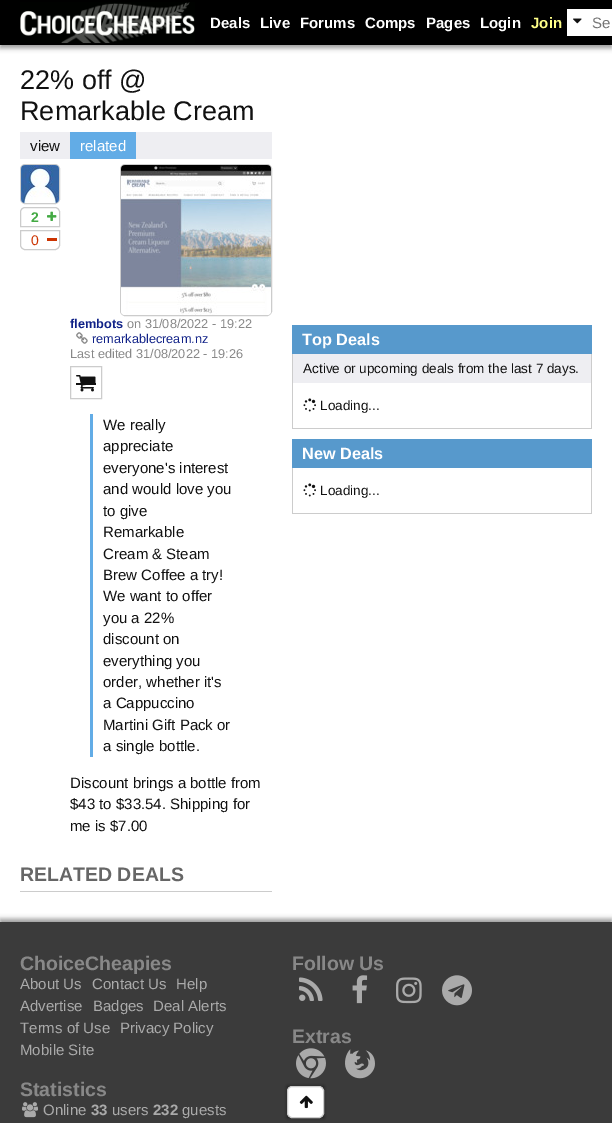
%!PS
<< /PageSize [612 1123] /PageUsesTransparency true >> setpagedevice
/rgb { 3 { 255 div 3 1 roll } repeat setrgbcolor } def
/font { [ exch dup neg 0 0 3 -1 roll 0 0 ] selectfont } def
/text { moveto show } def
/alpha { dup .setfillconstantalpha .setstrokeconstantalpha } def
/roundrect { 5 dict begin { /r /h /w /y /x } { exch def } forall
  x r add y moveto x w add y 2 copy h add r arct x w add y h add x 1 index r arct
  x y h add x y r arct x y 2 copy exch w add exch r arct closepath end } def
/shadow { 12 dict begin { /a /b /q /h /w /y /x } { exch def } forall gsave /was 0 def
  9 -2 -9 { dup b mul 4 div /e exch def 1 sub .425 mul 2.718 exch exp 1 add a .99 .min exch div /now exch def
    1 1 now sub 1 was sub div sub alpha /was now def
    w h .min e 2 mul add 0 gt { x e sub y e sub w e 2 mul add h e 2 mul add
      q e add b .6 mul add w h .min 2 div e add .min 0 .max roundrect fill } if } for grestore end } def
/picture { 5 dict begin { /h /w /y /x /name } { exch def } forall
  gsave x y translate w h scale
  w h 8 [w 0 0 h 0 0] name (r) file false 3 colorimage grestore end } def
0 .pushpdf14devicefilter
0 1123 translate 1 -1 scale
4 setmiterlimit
255 255 255 rgb
0 0 612 1123 rectfill
0 0 0 rgb
0 3 612 45 0 2.5 0.4 shadow
0 0 612 45 rectfill
(img_01.rgb) 20 2 175 41 picture
255 255 255 rgb
567 9 45 27 rectfill
(img_02.rgb) 573 18 9 6 picture
238 238 242 rgb
20 132 252 27 rectfill
98 172 230 rgb
70 132 66 27 rectfill
204 204 204 rgb
20.5 164.5 39 39 4.5 roundrect stroke
(img_03.rgb) 21 165 38 38 picture
25 207.5 moveto 30 0 rlineto 2.5 0 4.5 2 4.5 4.5 rcurveto 0 14.5 rlineto -39 0 rlineto 0 -14.5 rlineto 0 -2.5 2 -4.5 4.5 -4.5 rcurveto closepath stroke
(img_04.rgb) 47 211 10 10 picture
20.5 230.5 moveto 39 0 rlineto 0 14.5 rlineto 0 2.5 -2 4.5 -4.5 4.5 rcurveto -30 0 rlineto -2.5 0 -4.5 -2 -4.5 -4.5 rcurveto closepath stroke
204 51 0 rgb
47 238 10 3 rectfill
204 204 204 rgb
120.5 164.5 151 151 4.5 roundrect stroke
(img_05.rgb) 121 165 150 150 picture
(img_06.rgb) 76 332 12 12 picture
70.5 366.5 31 32 rectstroke
(img_07.rgb) 76 375 20 17 picture
17 17 17 rgb
76 383 20 2 rectfill
98 172 230 rgb
90 414 3 343 rectfill
204 204 204 rgb
20 891 252 1 rectfill
87 153 204 rgb
292 325 300 29 rectfill
204 204 204 rgb
591 354 1 75 rectfill
292 428 300 1 rectfill
292 354 1 75 rectfill
238 238 242 rgb
293 354 298 29 rectfill
(img_08.rgb) 303 398 13 14 picture
87 153 204 rgb
292 439 300 29 rectfill
204 204 204 rgb
591 468 1 46 rectfill
292 513 300 1 rectfill
292 468 1 46 rectfill
(img_08.rgb) 303 483 13 14 picture
0 0 0 rgb
0 919 612 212 0 2.5 0.4 shadow
59 59 59 rgb
0 922 612 201 rectfill
0 0 0 rgb
287 1086 37 32 0 1.5 0.4 shadow
255 255 255 rgb
287.5 1086.5 36 31 4.5 roundrect gsave fill grestore
204 204 204 rgb
stroke
(img_09.rgb) 299 1095 14 14 picture
(img_10.rgb) 22 1102 16 16 picture
(img_11.rgb) 299 977 24 24 picture
(img_12.rgb) 352 975 16 29 picture
(img_13.rgb) 396 977 26 27 picture
(img_14.rgb) 442 975 30 31 picture
(img_15.rgb) 296 1048 30 31 picture
(img_16.rgb) 345 1049 30 30 picture
/LiberationSans-Bold 15 font
255 255 255 rgb
(Deals) 210 28 text
(Live) 260 28 text
(Forums) 300 28 text
(Comps) 365 28 text
(Pages) 426 28 text
(Login) 480 28 text
255 255 136 rgb
(Join) 531 28 text
/LiberationSans-Regular 15 font
117 117 117 rgb
(Se) 592 28 text
/LiberationSans-Regular 27 font
17 17 17 rgb
(22% off @) 20 89 text
(Remarkable Cream) 20 120 text
/LiberationSans-Regular 15 font
(view) 30 151 text
255 255 255 rgb
(related) 80 151 text
/LiberationSans-Bold 14 font
68 170 68 rgb
(2) 31 222 text
/LiberationSans-Regular 14 font
204 51 0 rgb
(0) 31 245 text
/LiberationSans-Bold 12.75 font
17 34 136 rgb
(flembots) 70 328 text
/LiberationSans-Regular 12.75 font
136 136 136 rgb
(on 31/08/2022 - 19:22) 127 328 text
17 34 136 rgb
(remarkablecream.nz) 92 343 text
136 136 136 rgb
(Last edited 31/08/2022 - 19:26) 70 358 text
/LiberationSans-Regular 15 font
17 17 17 rgb
(We really) 103 430 text
(appreciate) 103 451 text
(everyone's interest) 103 473 text
(and would love you) 103 494 text
(to give) 103 516 text
(Remarkable) 103 537 text
(Cream & Steam) 103 559 text
(Brew Coffee a try!) 103 580 text
(We want to offer) 103 601 text
(you a 22%) 103 623 text
(discount on) 103 644 text
(everything you) 103 666 text
(order, whether it's) 103 687 text
(a Cappuccino) 103 708 text
(Martini Gift Pack or) 103 730 text
(a single bottle.) 103 751 text
(Discount brings a bottle from) 70 788 text
($43 to $33.54. Shipping for) 70 809 text
(me is $7.00) 70 831 text
/LiberationSans-Bold 19.5 font
102 102 102 rgb
(RELATED DEALS) 20 881 text
/LiberationSans-Bold 16.25 font
255 255 255 rgb
(Top Deals) 302 345 text
/LiberationSans-Regular 13.5 font
17 17 17 rgb
(Active or upcoming deals from the last 7 days.) 303 373 text
(Loading...) 320 410 text
/LiberationSans-Bold 16.25 font
255 255 255 rgb
(New Deals) 302 459 text
/LiberationSans-Regular 13.5 font
17 17 17 rgb
(Loading...) 320 495 text
/LiberationSans-Bold 19.5 font
136 136 136 rgb
(ChoiceCheapies) 20 970 text
/LiberationSans-Regular 15 font
170 170 170 rgb
(About Us) 20 989 text
(Contact Us) 92 989 text
(Help) 176 989 text
(Advertise) 20 1011 text
(Badges) 93 1011 text
(Deal Alerts) 153 1011 text
(Terms of Use) 20 1033 text
(Privacy Policy) 120 1033 text
(Mobile Site) 20 1055 text
/LiberationSans-Bold 19.5 font
136 136 136 rgb
(Statistics) 20 1096 text
/LiberationSans-Regular 15 font
170 170 170 rgb
(Online) 43 1115 text
/LiberationSans-Bold 15 font
(33) 91 1115 text
/LiberationSans-Regular 15 font
(users) 112 1115 text
/LiberationSans-Bold 15 font
(232) 153 1115 text
/LiberationSans-Regular 15 font
(guests) 182 1115 text
/LiberationSans-Bold 19.5 font
136 136 136 rgb
(Follow Us) 292 970 text
(Extras) 292 1043 text
.poppdf14devicefilter showpage
